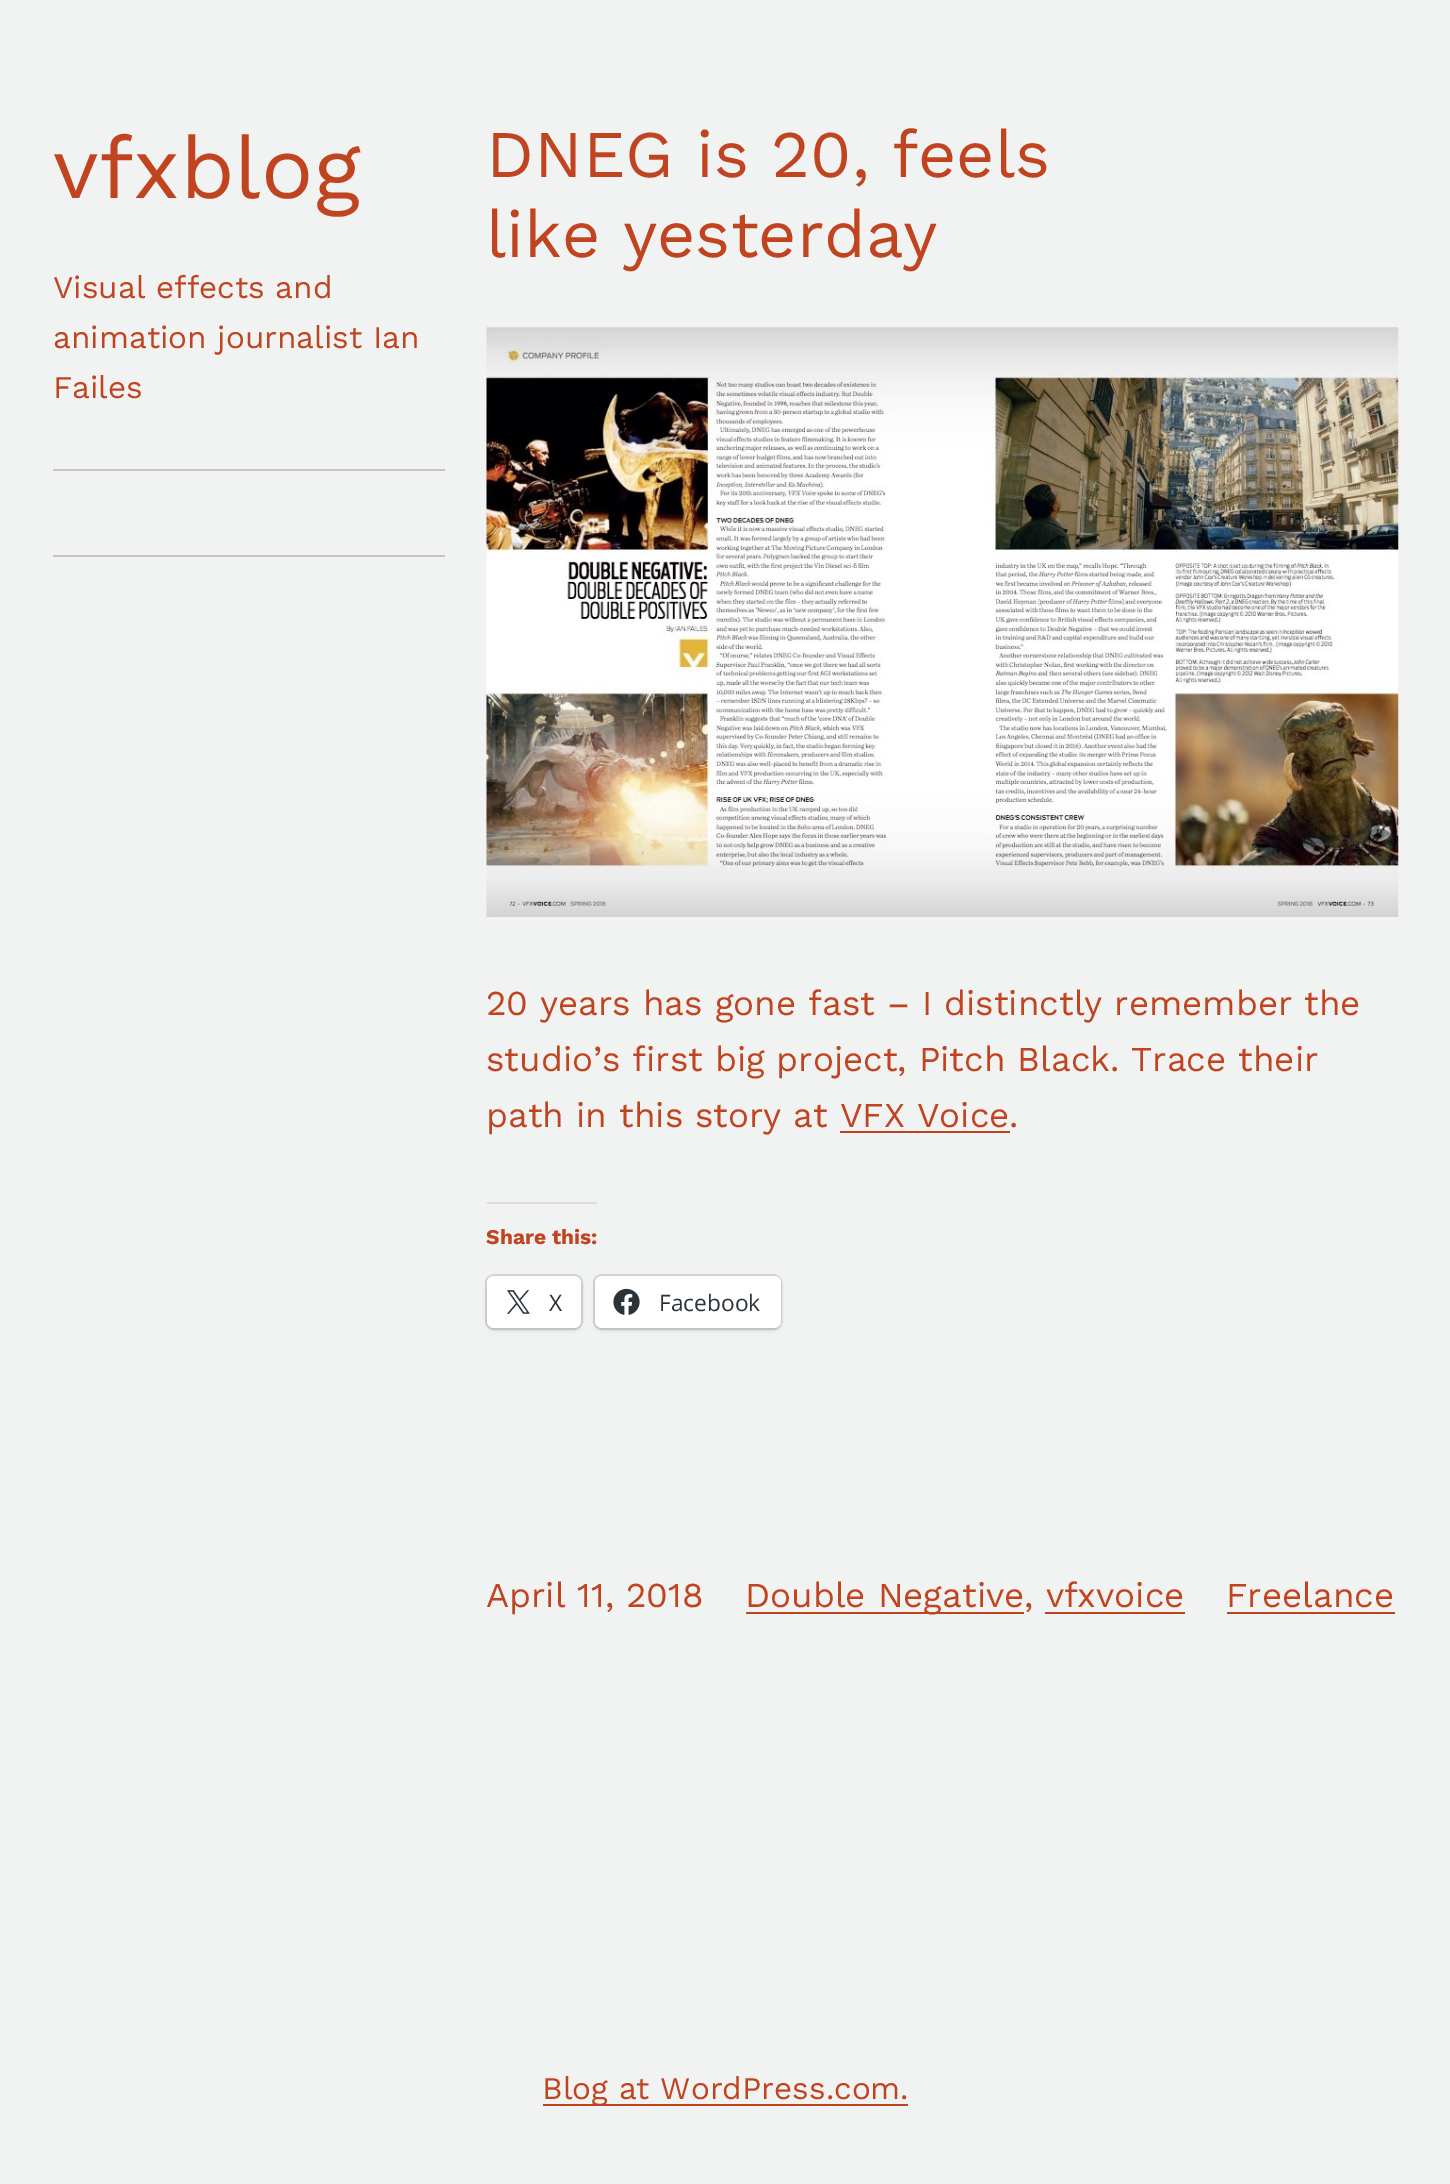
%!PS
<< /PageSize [1450 2184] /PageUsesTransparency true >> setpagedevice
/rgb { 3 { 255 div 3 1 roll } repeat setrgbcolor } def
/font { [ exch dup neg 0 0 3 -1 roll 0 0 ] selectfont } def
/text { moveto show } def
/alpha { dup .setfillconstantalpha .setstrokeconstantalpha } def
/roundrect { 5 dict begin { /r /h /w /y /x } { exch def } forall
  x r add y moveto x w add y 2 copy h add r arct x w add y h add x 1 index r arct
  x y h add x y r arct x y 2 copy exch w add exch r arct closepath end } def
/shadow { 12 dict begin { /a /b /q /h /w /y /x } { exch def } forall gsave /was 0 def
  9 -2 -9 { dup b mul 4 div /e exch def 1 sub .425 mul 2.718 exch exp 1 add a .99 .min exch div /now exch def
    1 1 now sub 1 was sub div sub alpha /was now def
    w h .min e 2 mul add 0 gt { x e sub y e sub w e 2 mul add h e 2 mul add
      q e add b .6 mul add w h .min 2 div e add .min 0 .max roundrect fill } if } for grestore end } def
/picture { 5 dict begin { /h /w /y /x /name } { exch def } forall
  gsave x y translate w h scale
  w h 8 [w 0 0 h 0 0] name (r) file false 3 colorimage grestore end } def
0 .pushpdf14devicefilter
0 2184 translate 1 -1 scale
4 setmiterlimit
241 242 242 rgb
0 0 1450 2184 rectfill
196 196 196 rgb
53 469 392 2 rectfill
53 555 392 2 rectfill
(img_01.rgb) 486 327 913 590 picture
193 68 32 rgb
840 1131 170 2 rectfill
220 220 222 rgb
487 1202 110 2 rectfill
212 213 213 rgb
2 setlinewidth
486 1275 96 54 8 roundrect stroke
0 0 0 rgb
487 1278 94 52 7 2 0.12 shadow
255 255 255 rgb
487 1276 94 52 7 roundrect fill
(img_02.rgb) 507 1290 23 24 picture
212 213 213 rgb
594 1275 187 54 8 roundrect stroke
0 0 0 rgb
595 1278 186 52 7 2 0.12 shadow
255 255 255 rgb
595 1276 186 52 7 roundrect fill
(img_03.rgb) 613 1288 27 27 picture
193 68 32 rgb
746 1612 278 2 rectfill
1045 1612 140 2 rectfill
1227 1612 168 2 rectfill
543 2104 365 2 rectfill
/WorkSans-Regular 87.5 font
(vfxblog) 53 198 text
/WorkSans-Regular 31.5 font
(Visual effects and) 53 298 text
(animation journalist Ian) 53 348 text
(Failes) 53 398 text
/WorkSans-Regular 66.5 font
(DNEG is 20, feels) 486 177 text
(like yesterday) 486 257 text
/WorkSans-Regular 35 font
(20 years has gone fast – I distinctly remember the) 486 1015 text
(studio’s first big project, Pitch Black. Trace their) 486 1071 text
(path in this story at VFX Voice.) 486 1127 text
/WorkSans-Bold 21 font
(Share this:) 486 1244 text
/OpenSans-Regular 22.75 font
44 51 56 rgb
(X) 549 1311 text
(Facebook) 659 1311 text
/WorkSans-Regular 35 font
193 68 32 rgb
(April 11, 2018) 486 1607 text
(Double Negative, vfxvoice) 745 1607 text
(Freelance) 1226 1607 text
/WorkSans-Regular 31.5 font
(Blog at WordPress.com.) 542 2099 text
.poppdf14devicefilter showpage
